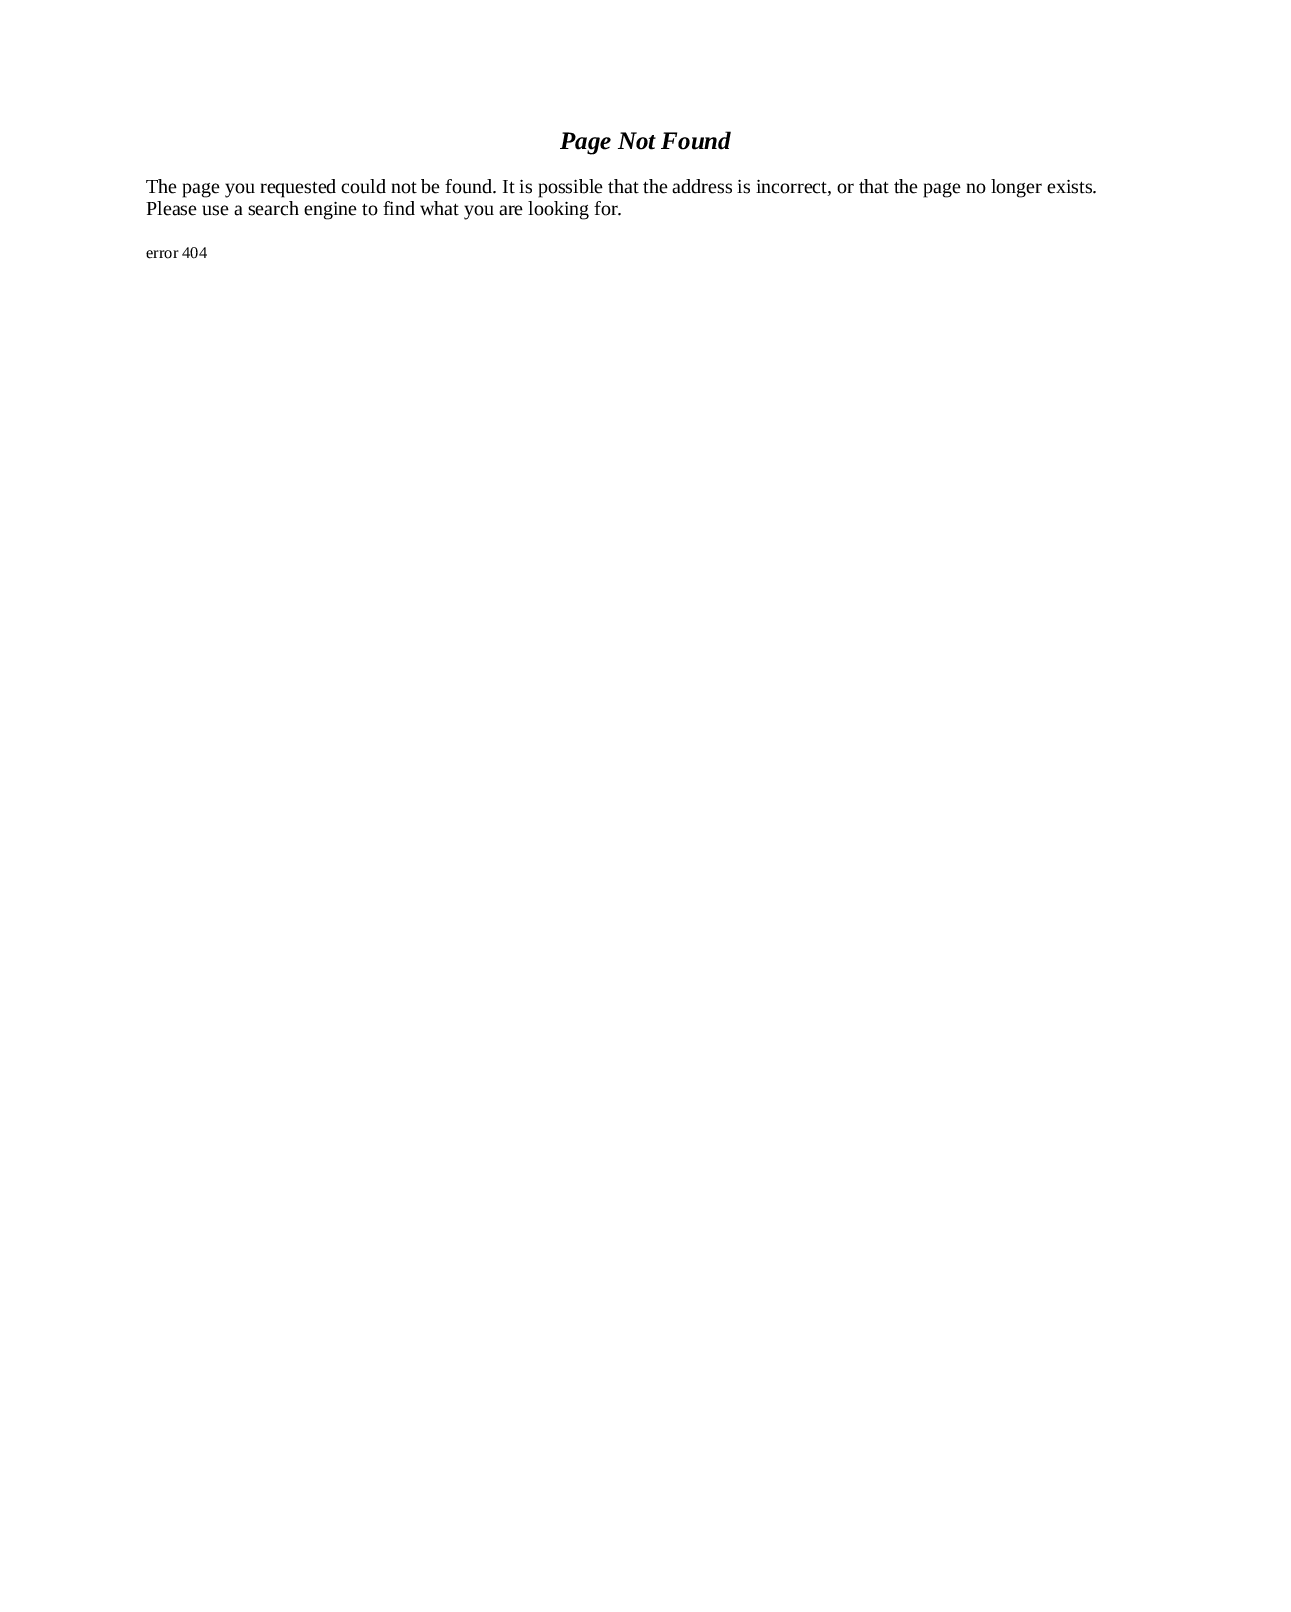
%!PS
<< /PageSize [1291 1612] >> setpagedevice
/rgb { 3 { 255 div 3 1 roll } repeat setrgbcolor } def
/font { [ exch dup neg 0 0 3 -1 roll 0 0 ] selectfont } def
/text { moveto show } def
0 1612 translate 1 -1 scale
4 setmiterlimit
255 255 255 rgb
0 0 1291 1612 rectfill
/LiberationSerif-BoldItalic 25 font
0 0 0 rgb
(Page Not Found) 560 149 text
/LiberationSerif-Regular 20 font
(The page you requested could not be found. It is possible that the address is incorrect, or that the page no longer exists.) 146 193 text
(Please use a search engine to find what you are looking for.) 146 215 text
/LiberationSerif-Regular 16.5 font
(error 404) 146 258 text
showpage
